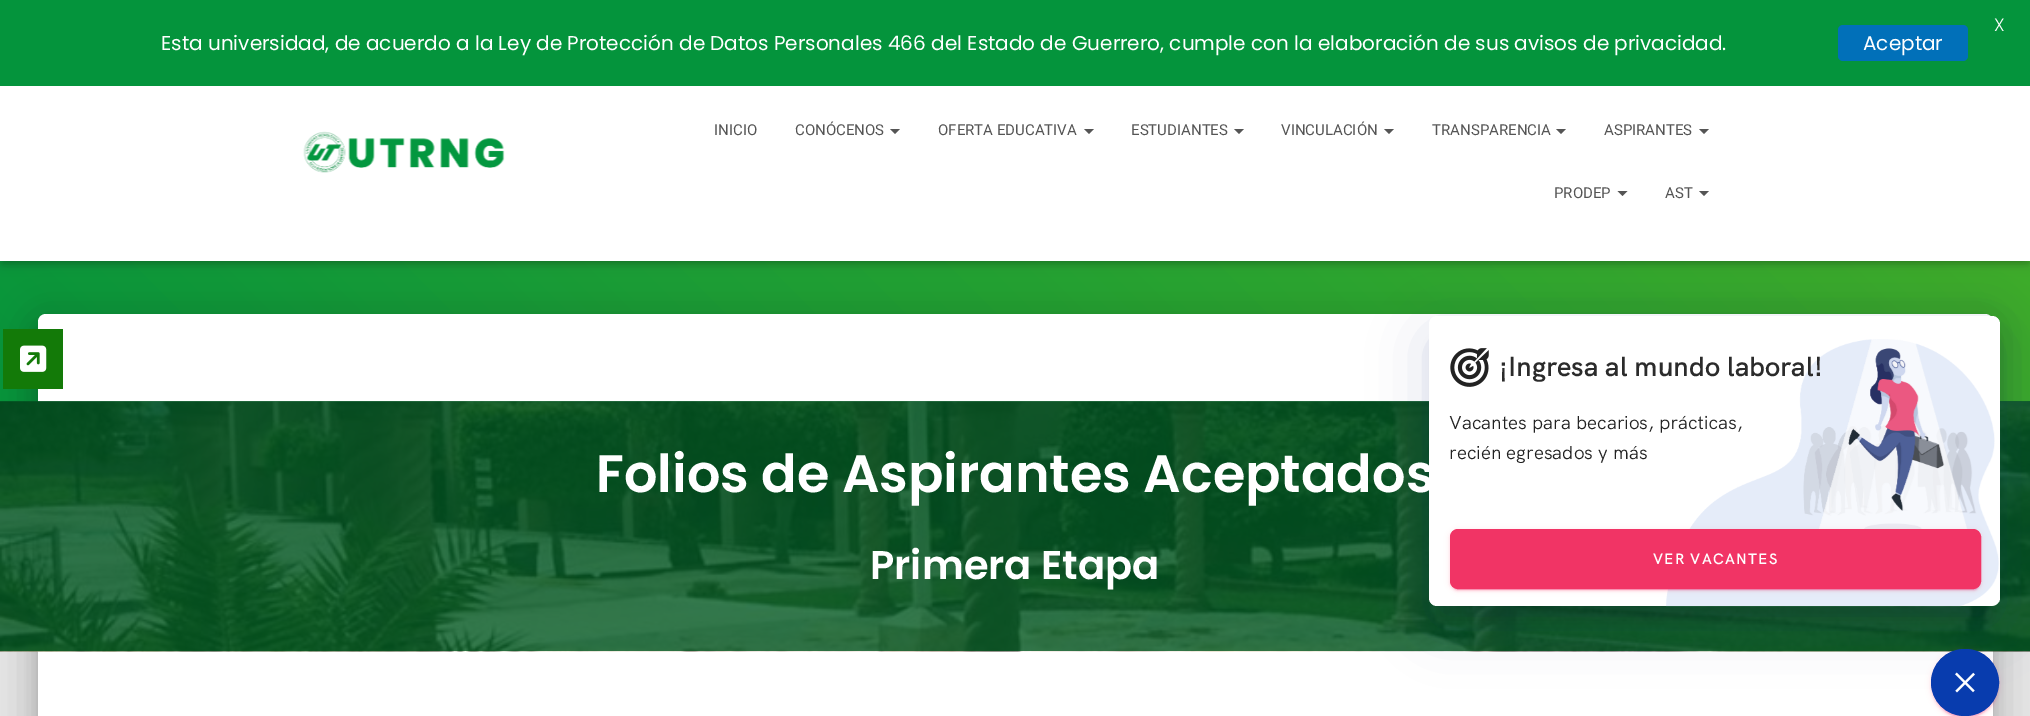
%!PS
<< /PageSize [2030 716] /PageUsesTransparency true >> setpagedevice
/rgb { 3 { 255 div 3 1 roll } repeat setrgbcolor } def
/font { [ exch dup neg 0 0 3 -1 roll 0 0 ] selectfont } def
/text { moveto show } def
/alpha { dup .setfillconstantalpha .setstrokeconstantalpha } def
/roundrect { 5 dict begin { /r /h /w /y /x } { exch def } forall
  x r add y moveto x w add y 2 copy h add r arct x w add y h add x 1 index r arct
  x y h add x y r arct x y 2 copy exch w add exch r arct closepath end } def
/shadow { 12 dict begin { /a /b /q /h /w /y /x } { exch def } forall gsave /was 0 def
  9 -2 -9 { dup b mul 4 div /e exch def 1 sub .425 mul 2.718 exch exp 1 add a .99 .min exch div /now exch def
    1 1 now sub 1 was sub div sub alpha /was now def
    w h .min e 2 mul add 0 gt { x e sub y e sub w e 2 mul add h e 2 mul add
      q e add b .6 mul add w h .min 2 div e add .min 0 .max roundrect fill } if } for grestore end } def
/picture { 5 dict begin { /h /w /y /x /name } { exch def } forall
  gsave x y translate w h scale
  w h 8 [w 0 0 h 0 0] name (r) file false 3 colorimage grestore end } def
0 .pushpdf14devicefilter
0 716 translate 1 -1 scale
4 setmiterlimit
229 229 229 rgb
0 0 2030 716 rectfill
gsave 0 261 moveto 2030 0 rlineto 0 141 rlineto -2030 0 rlineto closepath clip newpath
<< /ShadingType 2 /ColorSpace /DeviceRGB /Coords [358 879 1672 -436] /Extend [true true] /Function << /FunctionType 2 /Domain [0 1] /C0 [0.016 0.58 0.235] /C1 [0.275 0.69 0.153] /N 1 >> >> shfill grestore
0 0 0 rgb
3 94 2025 170 0 3 0.1 shadow
0 88 2030 175 0 6 0.12 shadow
8 95 2015 160 0 6 0.42 shadow
4 148 60 rgb
0 0 2030 86 rectfill
1 112 185 rgb
1838 25 130 36 5 roundrect fill
0 0 0 rgb
44 330 1942 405 1 6 0.2 shadow
31 315 1968 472 14 19 0.12 shadow
35 331 1960 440 10 15 0.14 shadow
255 255 255 rgb
46 314 moveto 1939 0 rlineto 4.5 0 8 3.5 8 8 rcurveto 0 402 rlineto -1955 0 rlineto 0 -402 rlineto 0 -4.5 3.5 -8 8 -8 rcurveto closepath fill
19 122 8 rgb
3 329 60 60 rectfill
(img_01.rgb) 20 345 27 27 picture
255 255 255 rgb
0 86 2030 175 rectfill
(img_02.rgb) 303 131 202 42 picture
85 85 85 rgb
890 129 moveto 10 0 rlineto -5 5 rlineto closepath fill
1084 129 moveto 10 0 rlineto -5 5 rlineto closepath fill
1234 129 moveto 10 0 rlineto -5 5 rlineto closepath fill
1384 129 moveto 10 0 rlineto -5 5 rlineto closepath fill
1556 129 moveto 10 0 rlineto -5 5 rlineto closepath fill
1699 129 moveto 10 0 rlineto -5 5 rlineto closepath fill
1617.5 191 moveto 10 0 rlineto -5 5 rlineto closepath fill
1699 191 moveto 10 0 rlineto -5 5 rlineto closepath fill
(img_03.rgb) 0 401 2030 251 picture
0.8 alpha
2 89 36 rgb
0 401 2030 250 rectfill
1 alpha
0 29 124 rgb
1429 334 571 290 8 29 0.16 shadow
0 0 0 rgb
1438 346 553 273 0 7.5 0.12 shadow
255 255 255 rgb
1429 316 571 290 8 roundrect fill
(img_04.rgb) 1450 348 39 39 picture
233 30 99 rgb
1931 650 68 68 34 3 0.12 shadow
1934 655 62 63 31 0.5 0.2 shadow
1931 651 68 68 34 1 0.14 shadow
8 60 174 rgb
1931.5 649.5 67 66 33 roundrect gsave fill grestore
stroke
(img_06.rgb) 1955 672 20 21 picture
/Poppins-Light 18 font
255 255 255 rgb
(X) 1994 31 text
/Poppins-Regular 20 font
(Esta universidad, de acuerdo a la Ley de Protección de Datos Personales 466 del Estado de Guerrero, cumple con la elaboración de sus avisos de privacidad.) 161 50 text
(Aceptar) 1863 50 text
/Roboto-Regular 15 font
85 85 85 rgb
(INICIO) 714 135 text
(CONÓCENOS) 795 135 text
(OFERTA EDUCATIVA) 938 135 text
(ESTUDIANTES) 1131 135 text
(VINCULACIÓN) 1281 135 text
(TRANSPARENCIA) 1432 135 text
(ASPIRANTES) 1604 135 text
(PRODEP) 1554 198 text
(AST) 1665 198 text
/Poppins-SemiBold 52.5 font
255 255 255 rgb
(Folios de Aspirantes Aceptados) 596 492 text
/Poppins-SemiBold 40 font
(Primera Etapa) 870 579 text
/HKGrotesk-Regular 18.75 font
34 34 34 rgb
(Vacantes para becarios, prácticas,) 1449 429 text
(recién egresados y más) 1449 459 text
(img_05.rgb) 1666 339 333 268 picture
/HKGrotesk-SemiBold 27.5 font
43 43 43 rgb
(¡Ingresa al mundo laboral!) 1499 376 text
233 30 99 rgb
1450 530 531 60 8 3 0.12 shadow
1453 535 526 55 5 0.5 0.2 shadow
1450 531 531 60 8 1 0.14 shadow
241 52 101 rgb
1450.5 529.5 530 59 7.5 roundrect gsave fill grestore
stroke
/HKGrotesk-SemiBold 15 font
255 255 255 rgb
1653 564 moveto 1.25 0 (VER VACANTES) ashow
.poppdf14devicefilter showpage
